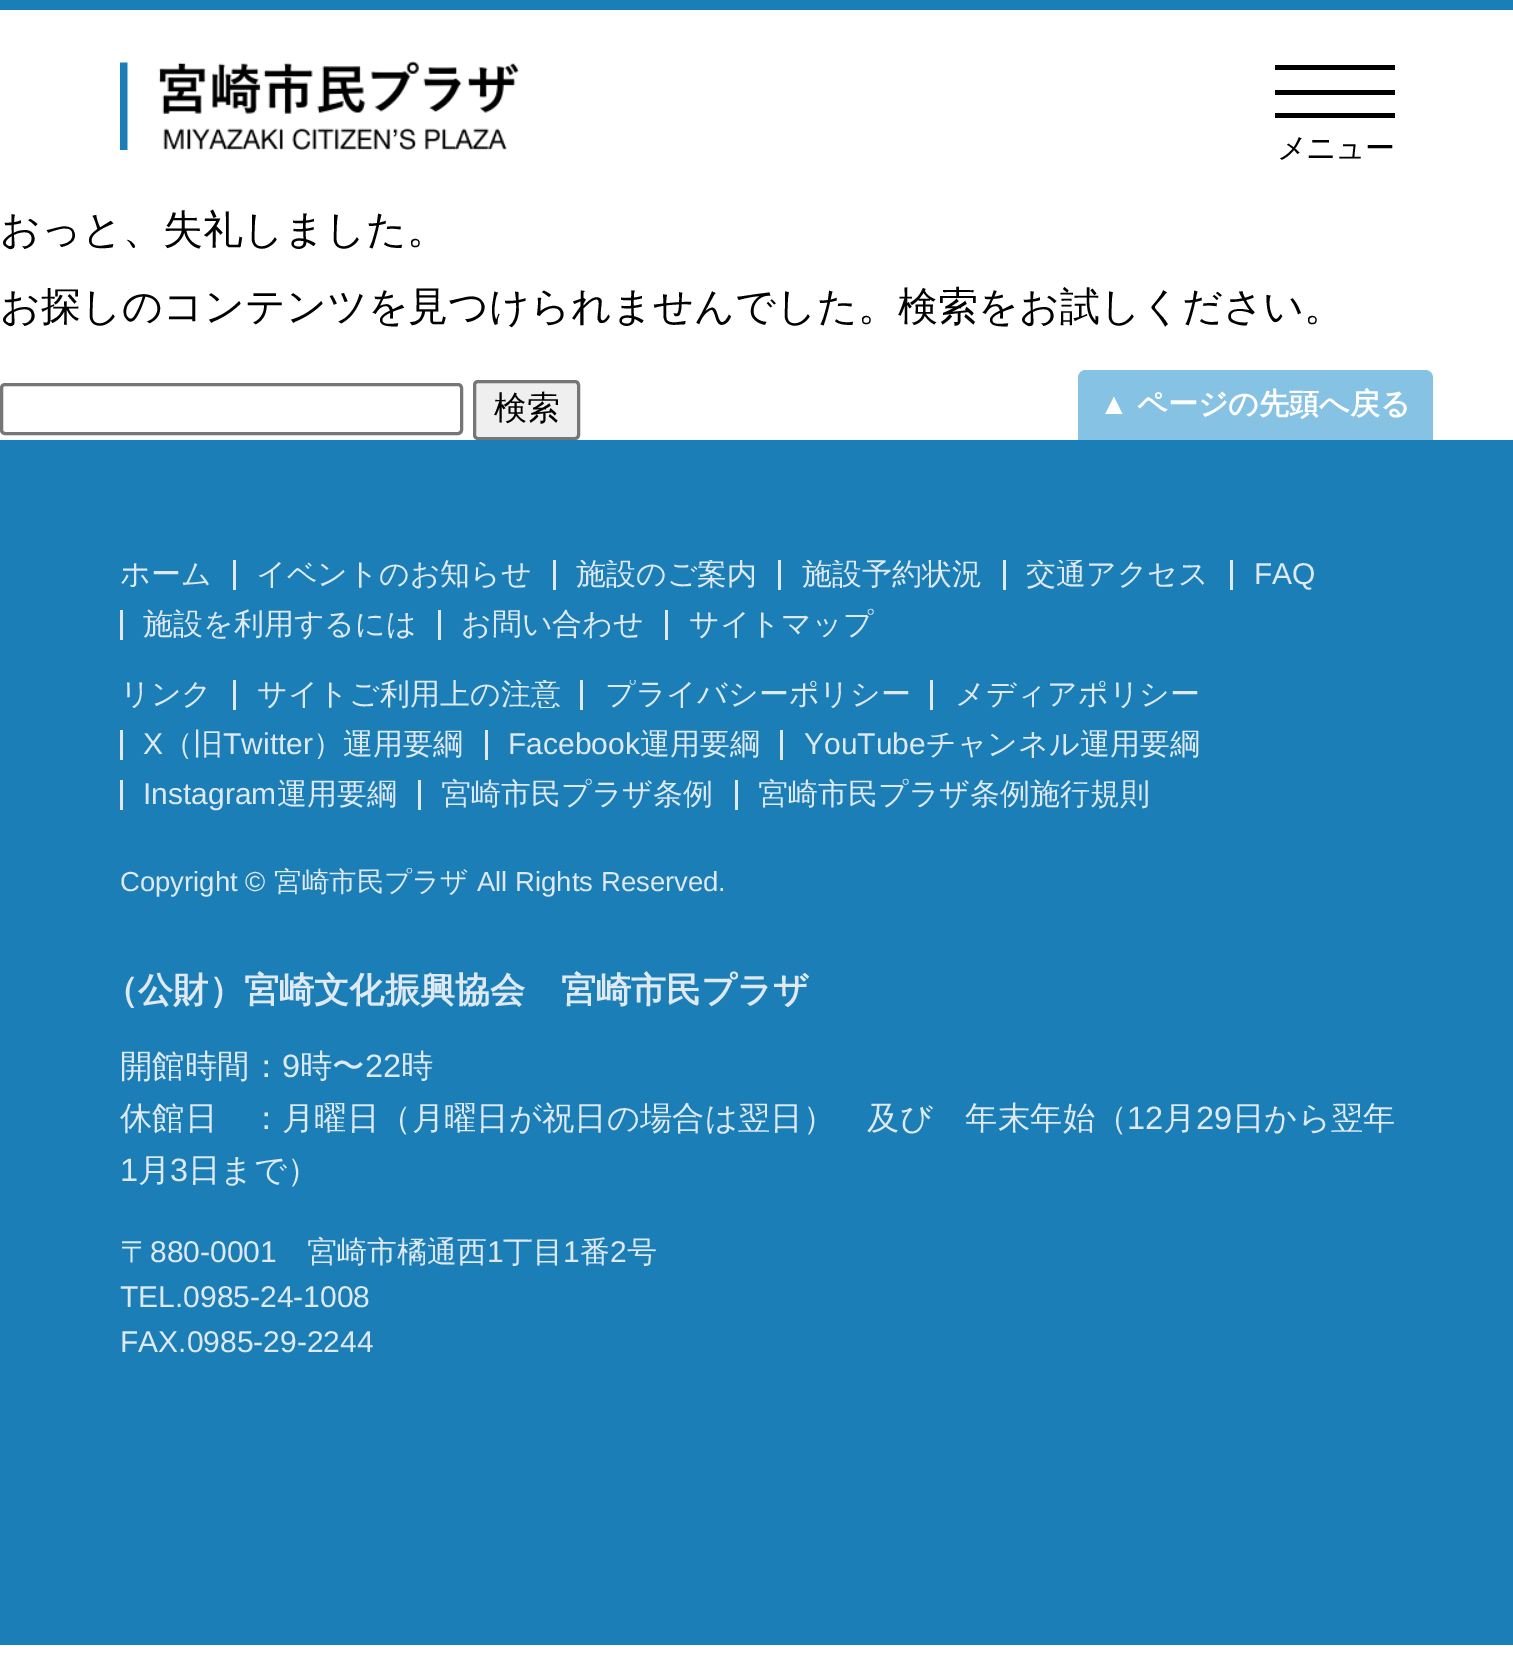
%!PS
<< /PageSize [1513 1661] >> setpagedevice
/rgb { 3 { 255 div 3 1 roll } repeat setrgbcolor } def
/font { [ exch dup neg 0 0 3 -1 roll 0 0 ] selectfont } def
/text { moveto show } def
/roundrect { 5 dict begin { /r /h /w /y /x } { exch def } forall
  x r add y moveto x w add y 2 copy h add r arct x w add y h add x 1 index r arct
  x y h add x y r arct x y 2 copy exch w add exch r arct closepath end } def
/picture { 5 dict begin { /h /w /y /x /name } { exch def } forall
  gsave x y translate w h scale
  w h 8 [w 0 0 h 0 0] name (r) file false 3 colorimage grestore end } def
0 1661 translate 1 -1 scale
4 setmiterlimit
255 255 255 rgb
0 0 1513 1661 rectfill
27 126 183 rgb
0 0 1513 10 rectfill
(img_01.rgb) 120 61 399 89 picture
0 0 0 rgb
1275 65 120 5 rectfill
1275 90 120 5 rectfill
1275 113 120 5 rectfill
118 118 118 rgb
3 setlinewidth
1.5 384.5 460 49 3.5 roundrect stroke
239 239 239 rgb
474.5 381.5 104 57 3.5 roundrect gsave fill grestore
118 118 118 rgb
stroke
27 126 183 rgb
0 440 1513 1205 rectfill
134 194 228 rgb
1086 370 moveto 339 0 rlineto 4.5 0 8 3.5 8 8 rcurveto 0 62 rlineto -355 0 rlineto 0 -62 rlineto 0 -4.5 3.5 -8 8 -8 rcurveto closepath fill
223 233 242 rgb
233 560 3 30 rectfill
553 560 3 30 rectfill
778 560 3 30 rectfill
1003 560 3 30 rectfill
1230 560 3 30 rectfill
120 610 3 30 rectfill
438 610 3 30 rectfill
665 610 3 30 rectfill
233 680 3 30 rectfill
580 680 3 30 rectfill
930 680 3 30 rectfill
120 730 3 30 rectfill
485 730 3 30 rectfill
780 730 3 30 rectfill
120 780 3 30 rectfill
418 780 3 30 rectfill
735 780 3 30 rectfill
/WenQuanYiZenHei-Medium 30 font
0 0 0 rgb
1277 158 moveto -1.5 0 (メニュー) ashow
/WenQuanYiZenHei-Medium 40 font
(おっと、失礼しました。) 0 243 text
(お探しのコンテンツを見つけられませんでした。検索をお試しください。) 0 320 text
/WenQuanYiZenHei-Medium 33 font
(検索) 494 419 text
/LiberationSans-Bold 30 font
255 255 255 rgb
(▲) 1099 414 text
/WenQuanYiZenHei-Bold 30 font
(ページの先頭へ戻る) 1137 414 text
/WenQuanYiZenHei-Medium 30 font
223 233 242 rgb
(ホーム) 120 584 text
(イベントのお知らせ) 256 584 text
gsave
120 560 1275 100 rectclip
(施設のご案内) 576 584 text
(施設予約状況) 802 584 text
(交通アクセス) 1026 584 text
grestore
/LiberationSans-Regular 30 font
(FAQ) 1254 584 text
/WenQuanYiZenHei-Medium 30 font
(施設を利用するには) 143 634 text
(お問い合わせ) 461 634 text
(サイトマップ) 689 634 text
(リンク) 120 704 text
gsave
120 680 1275 150 rectclip
(サイトご利用上の注意) 257 704 text
(プライバシーポリシー) 605 704 text
grestore
(メディアポリシー) 955 704 text
/LiberationSans-Regular 30 font
(X) 143 754 text
/WenQuanYiZenHei-Medium 30 font
(（旧) 163 754 text
/LiberationSans-Regular 30 font
(Twitter) 223 754 text
/WenQuanYiZenHei-Medium 30 font
(）運用要綱) 313 754 text
/LiberationSans-Regular 30 font
(Facebook) 508 754 text
/WenQuanYiZenHei-Medium 30 font
(運用要綱) 640 754 text
/LiberationSans-Regular 30 font
(YouTube) 804 754 text
/WenQuanYiZenHei-Medium 30 font
(チャンネル運用要綱) 926 754 text
/LiberationSans-Regular 30 font
(Instagram) 143 804 text
/WenQuanYiZenHei-Medium 30 font
(運用要綱) 277 804 text
(宮崎市民プラザ条例) 441 804 text
(宮崎市民プラザ条例施行規則) 758 804 text
/LiberationSans-Regular 27.5 font
(Copyright ©) 120 891 text
/WenQuanYiZenHei-Medium 27.5 font
(宮崎市民プラザ) 274 891 text
/LiberationSans-Regular 27.5 font
(All Rights Reserved.) 477 891 text
/WenQuanYiZenHei-Bold 35.2 font
(（公財）宮崎文化振興協会　宮崎市民プラザ) 103 1002 text
/WenQuanYiZenHei-Medium 32.4 font
(開館時間：) 120 1077 text
/LiberationSans-Regular 32.4 font
(9) 282 1077 text
/WenQuanYiZenHei-Medium 32.4 font
(時〜) 300 1077 text
/LiberationSans-Regular 32.4 font
(22) 365 1077 text
/WenQuanYiZenHei-Medium 32.4 font
(時) 401 1077 text
(休館日　：月曜日（月曜日が祝日の場合は翌日）　及び　年末年始（) 120 1129 text
/LiberationSans-Regular 32.4 font
(12) 1127 1129 text
/WenQuanYiZenHei-Medium 32.4 font
(月) 1163 1129 text
/LiberationSans-Regular 32.4 font
(29) 1196 1129 text
/WenQuanYiZenHei-Medium 32.4 font
(日から翌年) 1232 1129 text
/LiberationSans-Regular 32.4 font
(1) 120 1181 text
/WenQuanYiZenHei-Medium 32.4 font
(月) 138 1181 text
/LiberationSans-Regular 32.4 font
(3) 170 1181 text
/WenQuanYiZenHei-Medium 32.4 font
(日まで）) 188 1181 text
/WenQuanYiZenHei-Medium 30 font
(〒) 120 1262 text
/LiberationSans-Regular 30 font
(880-0001) 150 1262 text
/WenQuanYiZenHei-Medium 30 font
(宮崎市橘通西) 307 1262 text
/LiberationSans-Regular 30 font
(1) 487 1262 text
/WenQuanYiZenHei-Medium 30 font
(丁目) 503 1262 text
/LiberationSans-Regular 30 font
(1) 563 1262 text
/WenQuanYiZenHei-Medium 30 font
(番) 580 1262 text
/LiberationSans-Regular 30 font
(2) 610 1262 text
/WenQuanYiZenHei-Medium 30 font
(号) 627 1262 text
/LiberationSans-Regular 30 font
(TEL.0985-24-1008) 120 1307 text
(FAX.0985-29-2244) 120 1352 text
showpage
